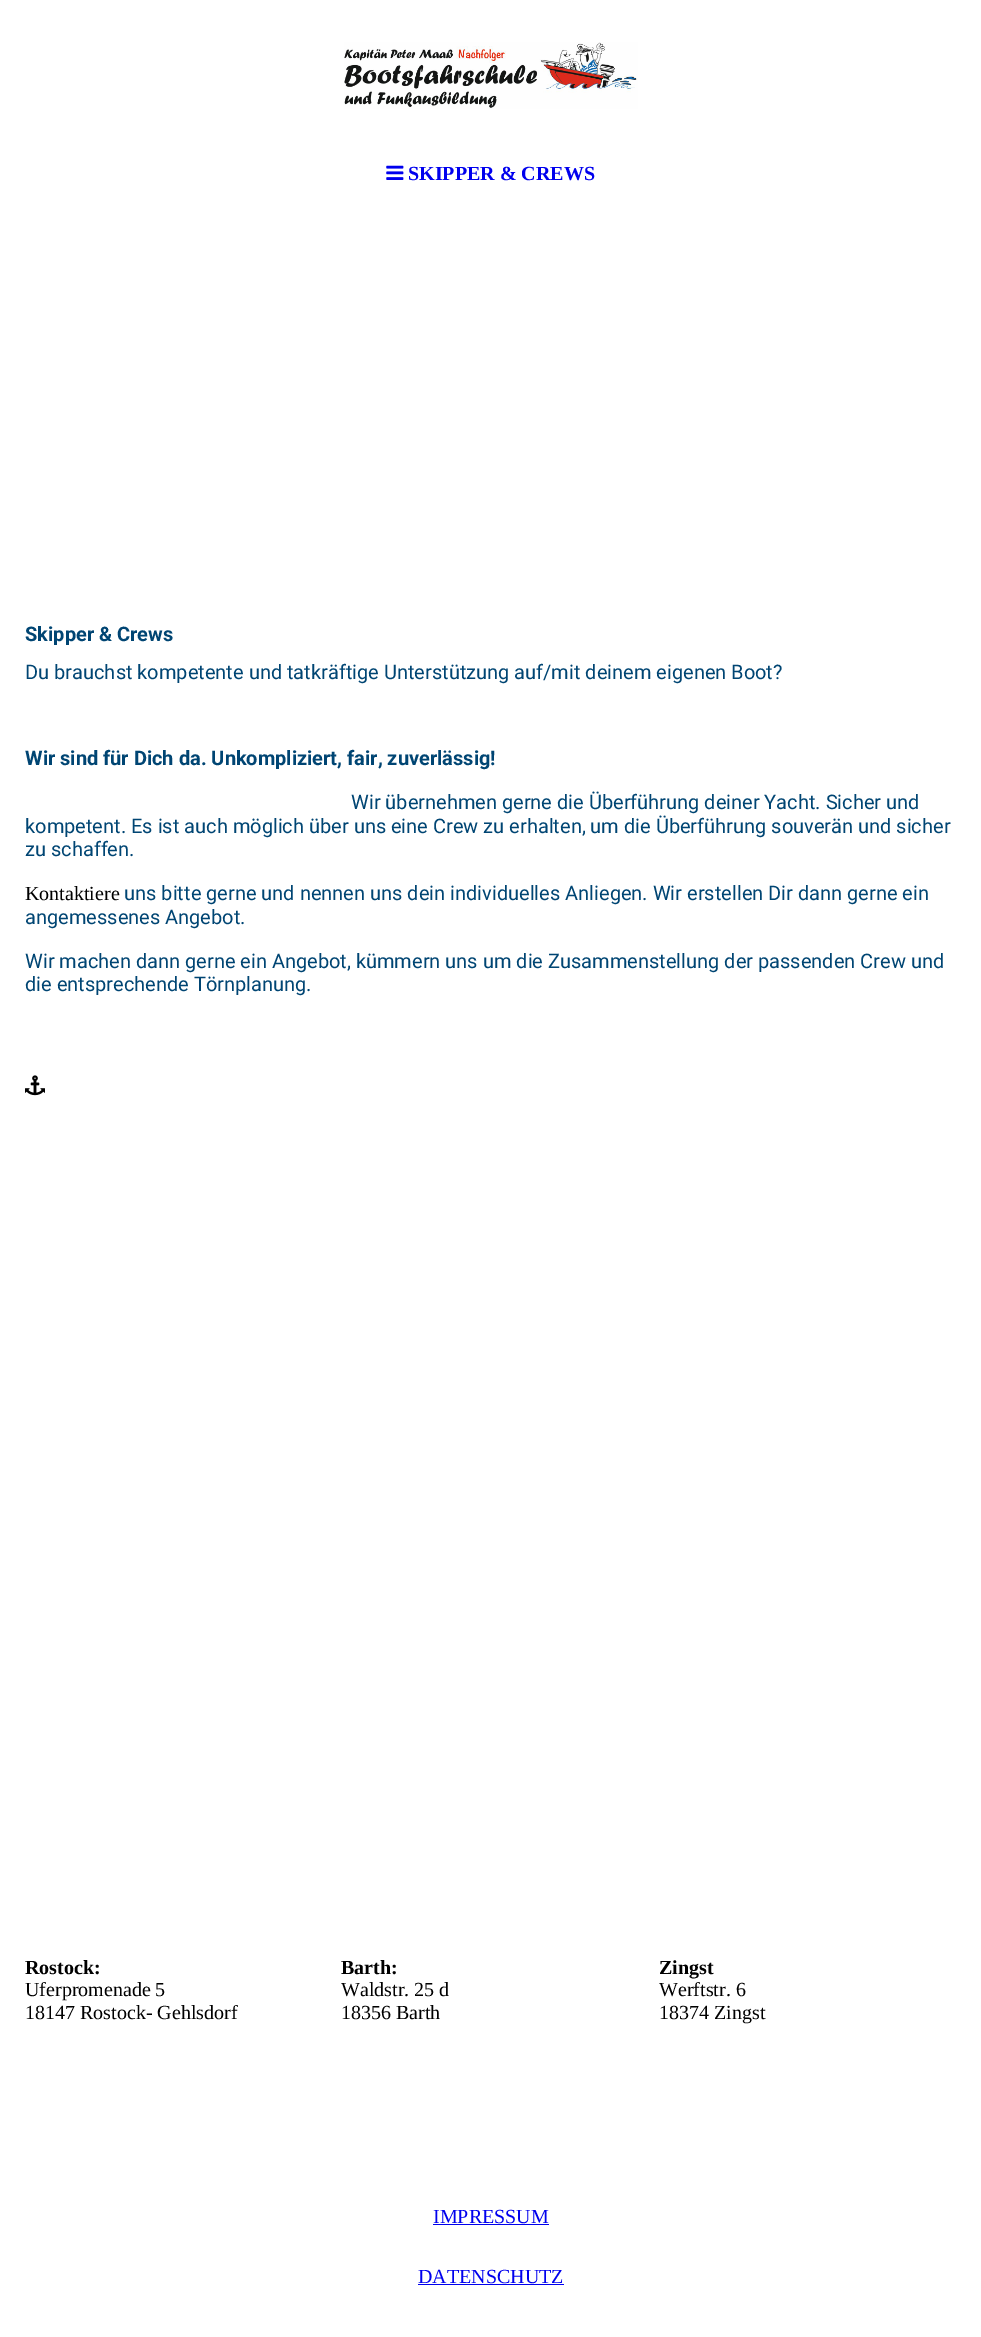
%!PS
<< /PageSize [981 2337] >> setpagedevice
/rgb { 3 { 255 div 3 1 roll } repeat setrgbcolor } def
/font { [ exch dup neg 0 0 3 -1 roll 0 0 ] selectfont } def
/text { moveto show } def
/picture { 5 dict begin { /h /w /y /x /name } { exch def } forall
  gsave x y translate w h scale
  w h 8 [w 0 0 h 0 0] name (r) file false 3 colorimage grestore end } def
0 2337 translate 1 -1 scale
4 setmiterlimit
255 255 255 rgb
0 0 981 2337 rectfill
(img_01.rgb) 344 42 294 67 picture
(img_02.rgb) 386 165 18 15 picture
(img_03.rgb) 25 1075 20 21 picture
0 0 238 rgb
433 2224 116 1 rectfill
418 2284 146 1 rectfill
/LiberationSerif-Bold 20 font
(SKIPPER & CREWS) 408 180 text
/Roboto-Bold 20 font
0 69 115 rgb
(Skipper & Crews) 25 641 text
/Roboto-Regular 20 font
(Du brauchst kompetente und tatkräftige Unterstützung auf/mit deinem eigenen Boot?) 25 679 text
/Roboto-Bold 20 font
(Wir sind für Dich da. Unkompliziert, fair, zuverlässig!) 25 765 text
/Roboto-Regular 20 font
(Wir übernehmen gerne die Überführung deiner Yacht. Sicher und) 351 809 text
(kompetent. Es ist auch möglich über uns eine Crew zu erhalten, um die Überführung souverän und sicher) 25 833 text
(zu schaffen.) 25 856 text
/LiberationSerif-Regular 20 font
0 0 0 rgb
(Kontaktiere) 25 900 text
/Roboto-Regular 20 font
0 69 115 rgb
(uns bitte gerne und nennen uns dein individuelles Anliegen. Wir erstellen Dir dann gerne ein) 124 900 text
(angemessenes Angebot.) 25 924 text
(Wir machen dann gerne ein Angebot, kümmern uns um die Zusammenstellung der passenden Crew und) 25 968 text
(die entsprechende Törnplanung.) 25 991 text
/LiberationSerif-Bold 20 font
0 0 0 rgb
(Rostock:) 25 1974 text
/LiberationSerif-Regular 20 font
(Uferpromenade 5) 25 1996 text
(18147 Rostock- Gehlsdorf) 25 2019 text
/LiberationSerif-Bold 20 font
(Barth:) 341 1974 text
/LiberationSerif-Regular 20 font
(Waldstr. 25 d) 341 1996 text
(18356 Barth) 341 2019 text
/LiberationSerif-Bold 20 font
(Zingst) 659 1974 text
/LiberationSerif-Regular 20 font
(Werftstr. 6) 659 1996 text
(18374 Zingst) 659 2019 text
0 0 238 rgb
(IMPRESSUM) 433 2223 text
(DATENSCHUTZ) 418 2283 text
showpage
